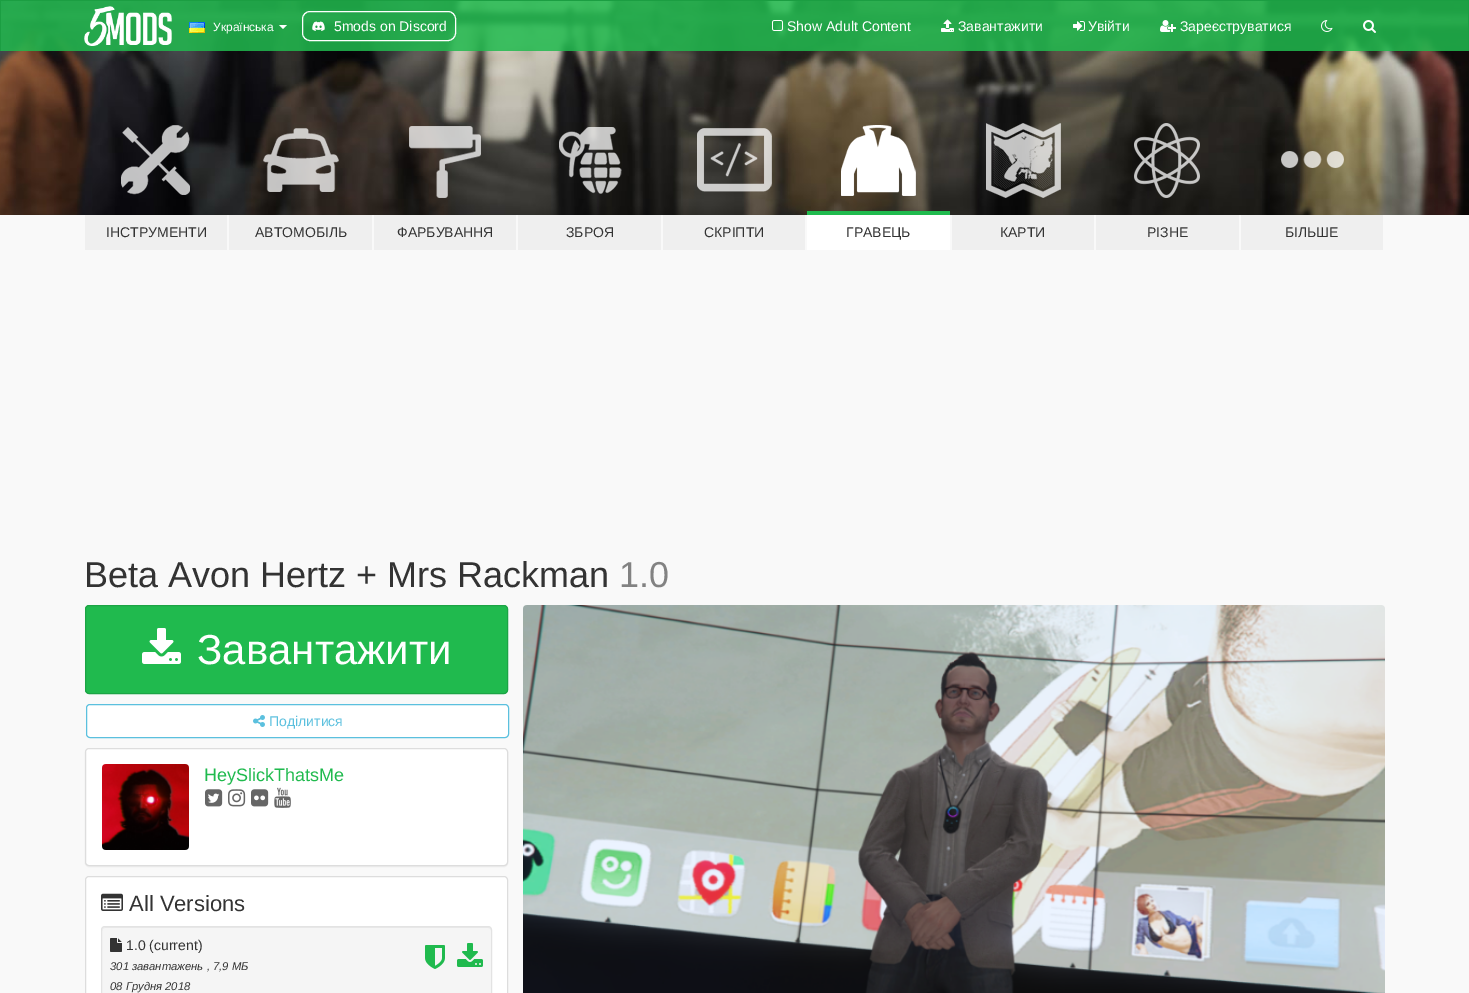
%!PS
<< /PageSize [1469 993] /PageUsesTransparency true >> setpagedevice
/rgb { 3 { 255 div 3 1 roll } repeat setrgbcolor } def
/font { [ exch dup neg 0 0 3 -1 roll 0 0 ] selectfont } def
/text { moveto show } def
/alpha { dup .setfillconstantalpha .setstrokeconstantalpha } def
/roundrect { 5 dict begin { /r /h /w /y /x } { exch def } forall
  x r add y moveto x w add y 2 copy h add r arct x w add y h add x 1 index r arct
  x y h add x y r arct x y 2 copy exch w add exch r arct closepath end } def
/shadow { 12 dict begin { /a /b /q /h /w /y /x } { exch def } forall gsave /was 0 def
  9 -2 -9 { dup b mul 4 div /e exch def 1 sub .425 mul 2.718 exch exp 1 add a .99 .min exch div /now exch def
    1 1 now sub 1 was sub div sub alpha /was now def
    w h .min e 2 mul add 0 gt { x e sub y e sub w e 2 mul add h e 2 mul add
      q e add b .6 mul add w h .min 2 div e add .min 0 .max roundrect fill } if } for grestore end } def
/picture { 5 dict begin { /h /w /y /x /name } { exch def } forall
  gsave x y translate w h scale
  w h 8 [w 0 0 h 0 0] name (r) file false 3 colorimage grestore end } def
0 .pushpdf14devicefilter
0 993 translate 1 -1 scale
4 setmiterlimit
249 249 249 rgb
0 0 1469 993 rectfill
(img_10.rgb) 0 1 1469 214 picture
0.85 alpha
32 186 78 rgb
1 1 1467 50 rectfill
1 alpha
27 158 66 rgb
0 0 1469 1 rectfill
1468 0 1 51 rectfill
0 0 1 51 rectfill
(img_01.rgb) 84 6 88 40 picture
(img_02.rgb) 189 22 16 11 picture
255 255 255 rgb
279 25 moveto 8 0 rlineto -4 4 rlineto closepath fill
302.5 11.5 153 29 7.5 roundrect stroke
(img_03.rgb) 312 21 13 10 picture
(img_04.rgb) 772 20 11 11 picture
(img_05.rgb) 941 19 13 13 picture
(img_06.rgb) 1073 21 12 10 picture
(img_07.rgb) 1160 20 16 12 picture
(img_08.rgb) 1321 20 12 12 picture
(img_09.rgb) 1363 20 13 13 picture
(img_11.rgb) 121 125 69 70 picture
239 239 239 rgb
85 215 142 35 rectfill
(img_12.rgb) 263 128 76 64 picture
229 215 143 35 rectfill
(img_13.rgb) 409 126 72 72 picture
374 215 142 35 rectfill
(img_14.rgb) 559 127 63 67 picture
518 215 143 35 rectfill
(img_15.rgb) 697 128 75 64 picture
663 215 142 35 rectfill
(img_16.rgb) 841 125 75 71 picture
32 186 78 rgb
807 211 143 4 rectfill
255 255 255 rgb
807 215 143 35 rectfill
(img_17.rgb) 986 123 75 75 picture
239 239 239 rgb
952 215 142 35 rectfill
(img_18.rgb) 1134 123 66 75 picture
1096 215 143 35 rectfill
(img_19.rgb) 1281 151 63 17 picture
1241 215 142 35 rectfill
32 186 78 rgb
85.5 605.5 422 88 3.5 roundrect gsave fill grestore
28 164 69 rgb
stroke
(img_20.rgb) 142 628 39 36 picture
255 255 255 rgb
86.5 704.5 422 33 3.5 roundrect gsave fill grestore
91 192 222 rgb
stroke
(img_21.rgb) 253 715 12 12 picture
0 0 0 rgb
85 749 423 118 4 0.5 0.05 shadow
255 255 255 rgb
85.5 748.5 422 117 3.5 roundrect gsave fill grestore
221 221 221 rgb
stroke
(img_22.rgb) 102 764 87 86 picture
(img_23.rgb) 205 789 18 18 picture
(img_24.rgb) 228 789 18 18 picture
(img_25.rgb) 251 789 18 18 picture
(img_26.rgb) 274 787 17 21 picture
255 255 255 rgb
85.5 876.5 422 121 3.5 roundrect gsave fill grestore
221 221 221 rgb
stroke
(img_27.rgb) 101 893 22 18 picture
245 245 245 rgb
101 926 391 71 4 roundrect fill
233 233 233 rgb
105 928 moveto 383 0 rlineto 2 0 3 1 3 3 rcurveto 0 -2 -1 -4 -3 -4 rcurveto -383 0 rlineto -2 1 rlineto -1 3 rlineto 0 -2 1 -3 3 -3 rcurveto closepath fill
227 227 227 rgb
101.5 926.5 390 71 3.5 roundrect stroke
(img_28.rgb) 110 938 12 14 picture
(img_29.rgb) 425 945 20 24 picture
(img_30.rgb) 457 943 26 24 picture
(img_31.rgb) 523 605 862 388 picture
/LiberationSans-Regular 12 font
255 255 255 rgb
(Українська) 213 31 text
/LiberationSans-Regular 14 font
(5mods on Discord) 334 31 text
(Show Adult Content) 787 31 text
(Завантажити) 958 31 text
(Увійти) 1088 31 text
(Зареєструватися) 1180 31 text
51 51 51 rgb
(ІНСТРУМЕНТИ) 106 237 text
(АВТОМОБІЛЬ) 255 237 text
(ФАРБУВАННЯ) 397 237 text
(ЗБРОЯ) 566 237 text
(СКРІПТИ) 704 237 text
(ГРАВЕЦЬ) 846 237 text
(КАРТИ) 1000 237 text
(РІЗНЕ) 1147 237 text
(БІЛЬШЕ) 1285 237 text
/LiberationSans-Regular 36 font
(Beta Avon Hertz + Mrs Rackman) 84 587 text
130 130 130 rgb
(1.0) 619 587 text
/LiberationSans-Regular 42 font
255 255 255 rgb
(Завантажити) 197 664 text
/LiberationSans-Regular 14 font
91 192 222 rgb
(Поділитися) 269 726 text
/LiberationSans-Regular 18 font
32 186 78 rgb
(HeySlickThatsMe) 204 781 text
/LiberationSans-Regular 22 font
51 51 51 rgb
(All Versions) 129 911 text
/LiberationSans-Regular 14 font
(1.0 \(current\)) 126 950 text
/LiberationSans-Italic 11.25 font
(301 завантажень , 7,9 МБ) 110 970 text
(08 Грудня 2018) 110 990 text
.poppdf14devicefilter showpage
